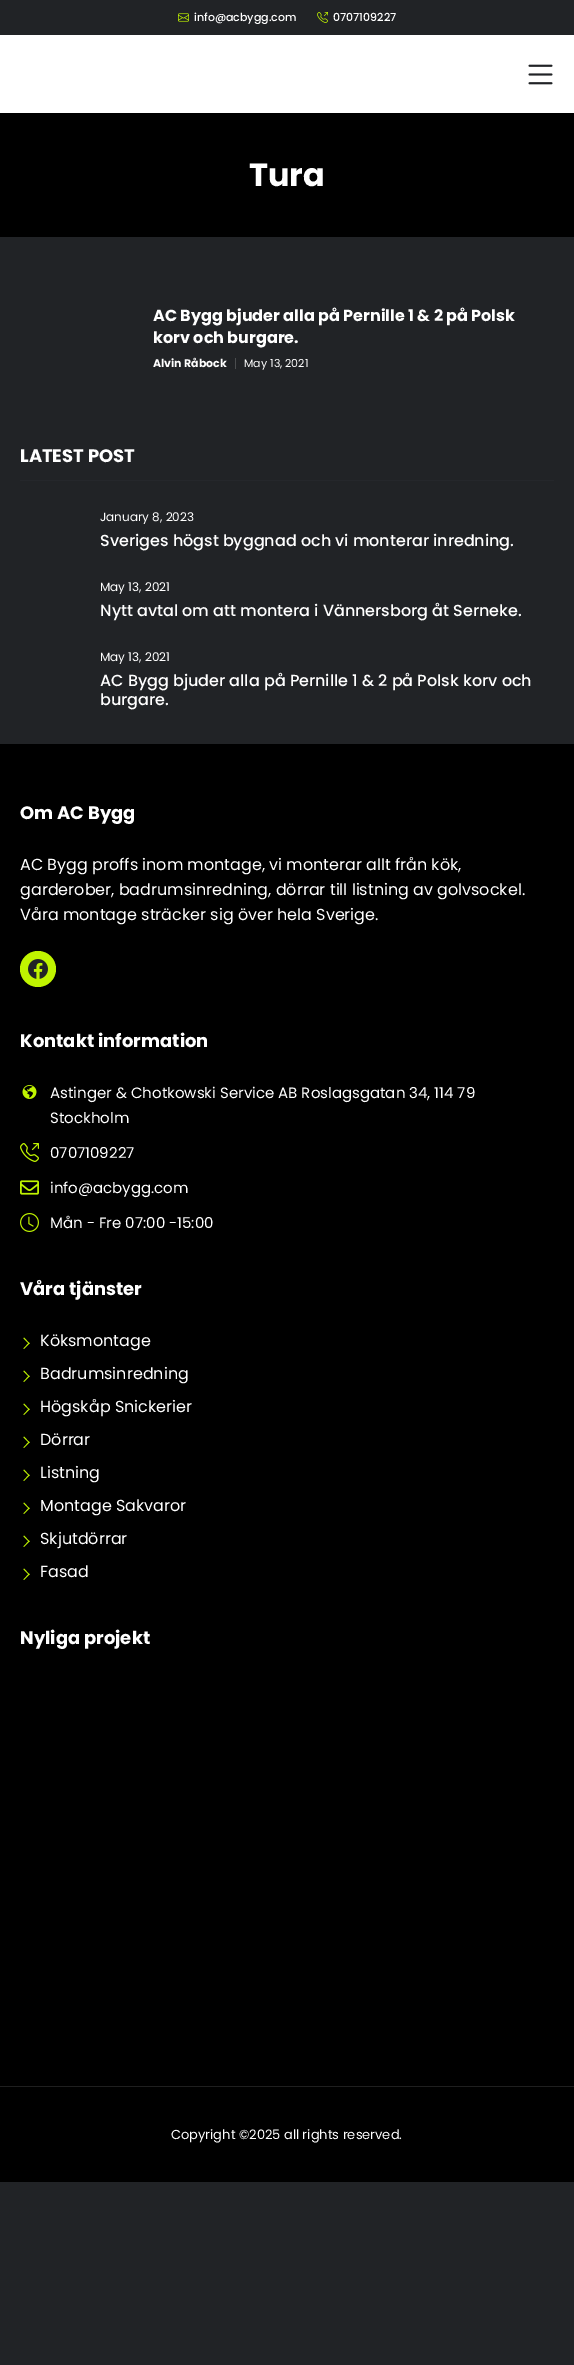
%!PS
<< /PageSize [574 2365] >> setpagedevice
/rgb { 3 { 255 div 3 1 roll } repeat setrgbcolor } def
/font { [ exch dup neg 0 0 3 -1 roll 0 0 ] selectfont } def
/text { moveto show } def
/circle { newpath 0 360 arc closepath } def
/picture { 5 dict begin { /h /w /y /x /name } { exch def } forall
  gsave x y translate w h scale
  w h 8 [w 0 0 h 0 0] name (r) file false 3 colorimage grestore end } def
0 2365 translate 1 -1 scale
4 setmiterlimit
33 35 38 rgb
0 0 574 2365 rectfill
(img_01.rgb) 178 13 11 9 picture
(img_02.rgb) 317 12 11 11 picture
255 255 255 rgb
0 35 574 78 rectfill
(img_03.rgb) 528 64 25 21 picture
0 0 0 rgb
0 113 574 124 rectfill
75 77 79 rgb
235 358 1 11 rectfill
37 39 43 rgb
20 480 534 1 rectfill
0 0 0 rgb
0 744 574 1438 rectfill
192 244 0 rgb
38 969 18 circle fill
(img_04.rgb) 28 959 20 20 picture
(img_05.rgb) 22 1085 15 14 picture
(img_06.rgb) 20 1143 19 19 picture
(img_07.rgb) 20 1180 19 15 picture
(img_08.rgb) 20 1213 19 19 picture
24 1337.5 moveto 5.5 6 rlineto -0.5 0.5 rlineto -5.5 -5.5 rlineto closepath fill
29 1342.5 moveto 0.5 1 rlineto -5.5 5.5 rlineto -0.5 -0.5 rlineto closepath fill
24 1370.5 moveto 5.5 6 rlineto -0.5 0.5 rlineto -5.5 -5.5 rlineto closepath fill
29 1375.5 moveto 0.5 1 rlineto -5.5 5.5 rlineto -0.5 -0.5 rlineto closepath fill
24 1403.5 moveto 5.5 6 rlineto -0.5 0.5 rlineto -5.5 -5.5 rlineto closepath fill
29 1408.5 moveto 0.5 1 rlineto -5.5 5.5 rlineto -0.5 -0.5 rlineto closepath fill
24 1436.5 moveto 5.5 6 rlineto -0.5 0.5 rlineto -5.5 -5.5 rlineto closepath fill
29 1441.5 moveto 0.5 1 rlineto -5.5 5.5 rlineto -0.5 -0.5 rlineto closepath fill
24 1469.5 moveto 5.5 6 rlineto -0.5 0.5 rlineto -5.5 -5.5 rlineto closepath fill
29 1474.5 moveto 0.5 1 rlineto -5.5 5.5 rlineto -0.5 -0.5 rlineto closepath fill
24 1502.5 moveto 5.5 6 rlineto -0.5 0.5 rlineto -5.5 -5.5 rlineto closepath fill
29 1507.5 moveto 0.5 1 rlineto -5.5 5.5 rlineto -0.5 -0.5 rlineto closepath fill
24 1535.5 moveto 5.5 6 rlineto -0.5 0.5 rlineto -5.5 -5.5 rlineto closepath fill
29 1540.5 moveto 0.5 1 rlineto -5.5 5.5 rlineto -0.5 -0.5 rlineto closepath fill
24 1568.5 moveto 5.5 6 rlineto -0.5 0.5 rlineto -5.5 -5.5 rlineto closepath fill
29 1573.5 moveto 0.5 1 rlineto -5.5 5.5 rlineto -0.5 -0.5 rlineto closepath fill
31 31 31 rgb
0 2086 574 1 rectfill
/Poppins-Medium 11 font
255 255 255 rgb
(info@acbygg.com) 194 21 text
(0707109227) 333 21 text
/Poppins-Bold 32 font
(Tura) 249 186 text
/Poppins-Bold 16 font
(AC Bygg bjuder alla på Pernille 1 & 2 på Polsk) 153 321 text
(korv och burgare.) 153 343 text
/Poppins-Bold 11 font
(Alvin Råbock) 153 367 text
/Poppins-Regular 11 font
(May 13, 2021) 244 367 text
/Poppins-Bold 18 font
(LATEST POST) 20 462 text
/Poppins-Regular 12 font
(January 8, 2023) 100 521 text
/Poppins-Medium 16 font
(Sveriges högst byggnad och vi monterar inredning.) 100 546 text
/Poppins-Regular 12 font
(May 13, 2021) 100 591 text
/Poppins-Medium 16 font
(Nytt avtal om att montera i Vännersborg åt Serneke.) 100 616 text
/Poppins-Regular 12 font
(May 13, 2021) 100 661 text
/Poppins-Medium 16 font
(AC Bygg bjuder alla på Pernille 1 & 2 på Polsk korv och) 100 686 text
(burgare.) 100 705 text
/Poppins-Bold 18 font
(Om AC Bygg) 20 819 text
/Poppins-Regular 16 font
(AC Bygg proffs inom montage, vi monterar allt från kök,) 20 870 text
(garderober, badrumsinredning, dörrar till listning av golvsockel.) 20 895 text
(Våra montage sträcker sig över hela Sverige.) 20 920 text
/Poppins-Bold 18 font
(Kontakt information) 20 1047 text
/Poppins-Regular 15 font
(Astinger & Chotkowski Service AB Roslagsgatan 34, 114 79) 50 1098 text
(Stockholm) 50 1123 text
(0707109227) 50 1158 text
(info@acbygg.com) 50 1193 text
(Mån - Fre 07:00 -15:00) 50 1228 text
/Poppins-Bold 18 font
(Våra tjänster) 20 1295 text
/Poppins-Regular 16 font
(Köksmontage) 40 1346 text
(Badrumsinredning) 40 1379 text
(Högskåp Snickerier) 40 1412 text
(Dörrar) 40 1445 text
(Listning) 40 1478 text
(Montage Sakvaror) 40 1511 text
(Skjutdörrar) 40 1544 text
(Fasad) 40 1577 text
/Poppins-Bold 18 font
(Nyliga projekt) 20 1644 text
/Poppins-Regular 13 font
(Copyright ©2025 all rights reserved.) 171 2139 text
showpage
